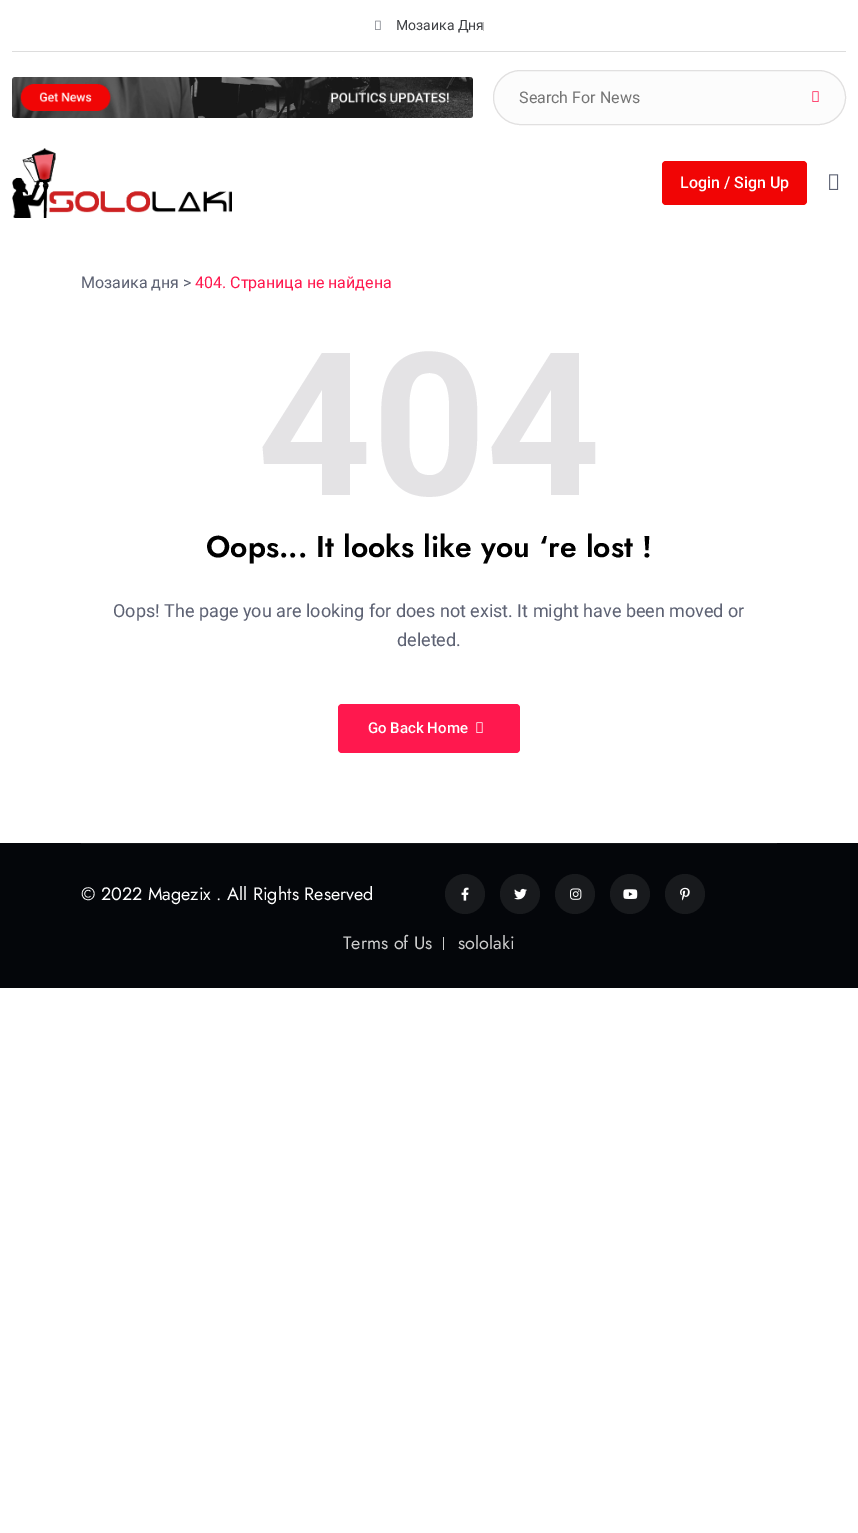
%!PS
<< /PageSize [858 1533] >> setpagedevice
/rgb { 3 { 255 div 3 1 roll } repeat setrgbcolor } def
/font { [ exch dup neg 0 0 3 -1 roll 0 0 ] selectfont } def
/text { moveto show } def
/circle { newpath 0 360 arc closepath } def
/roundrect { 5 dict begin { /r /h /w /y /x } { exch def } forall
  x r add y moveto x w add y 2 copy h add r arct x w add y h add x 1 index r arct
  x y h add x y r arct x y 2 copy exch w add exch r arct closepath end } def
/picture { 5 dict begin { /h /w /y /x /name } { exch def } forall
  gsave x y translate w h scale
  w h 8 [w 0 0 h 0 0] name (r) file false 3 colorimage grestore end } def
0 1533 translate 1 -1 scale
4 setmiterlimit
255 255 255 rgb
0 0 858 1533 rectfill
221 221 221 rgb
12 51 834 1 rectfill
(img_01.rgb) 375 20 6 10 picture
196 196 196 rgb
483 22 1 9 rectfill
(img_02.rgb) 12 77 461 41 picture
252 252 252 rgb
493.5 70.5 352 54 27 roundrect gsave fill grestore
225 224 224 rgb
stroke
(img_03.rgb) 812 91 7 11 picture
(img_04.rgb) 12 148 220 70 picture
241 5 5 rgb
662 161 145 44 4 roundrect fill
(img_05.rgb) 829 174 10 16 picture
255 24 78 rgb
338 704 182 49 4 roundrect fill
(img_06.rgb) 476 722 7 11 picture
4 6 10 rgb
0 843 858 145 rectfill
21 23 26 rgb
81 843 696 1 rectfill
24 26 29 rgb
465 894 20 circle fill
(img_07.rgb) 461 887 8 14 picture
520 894 20 circle fill
(img_08.rgb) 514 888 13 12 picture
575 894 20 circle fill
(img_09.rgb) 570 888 12 12 picture
630 894 20 circle fill
(img_10.rgb) 623 889 15 10 picture
685 894 20 circle fill
(img_11.rgb) 680 887 10 14 picture
205 205 205 rgb
443 937 1 13 rectfill
/Roboto-Regular 14 font
62 64 68 rgb
(Мозаика Дня) 396 30 text
/Roboto-Regular 16 font
117 117 117 rgb
(Search For News) 519 103 text
/Roboto-Medium 16 font
255 255 255 rgb
(Login / Sign Up) 680 188 text
/Roboto-Regular 16 font
93 98 115 rgb
(Мозаика дня >) 81 288 text
255 24 78 rgb
(404. Страница не найдена) 195 288 text
/Roboto-Bold 200 font
228 227 229 rgb
(404) 257 495 text
/Jost-SemiBold 30 font
0 0 0 rgb
(Oops... It looks like you ‘re lost !) 206 557 text
/Roboto-Regular 18 font
93 98 115 rgb
(Oops! The page you are looking for does not exist. It might have been moved or) 113 617 text
(deleted.) 397 646 text
/Roboto-Medium 15 font
255 255 255 rgb
(Go Back Home) 368 733 text
/Jost-Regular 18 font
(© 2022 Magezix . All Rights Reserved) 81 900 text
205 205 205 rgb
(Terms of Us) 343 949 text
(sololaki) 458 949 text
showpage
